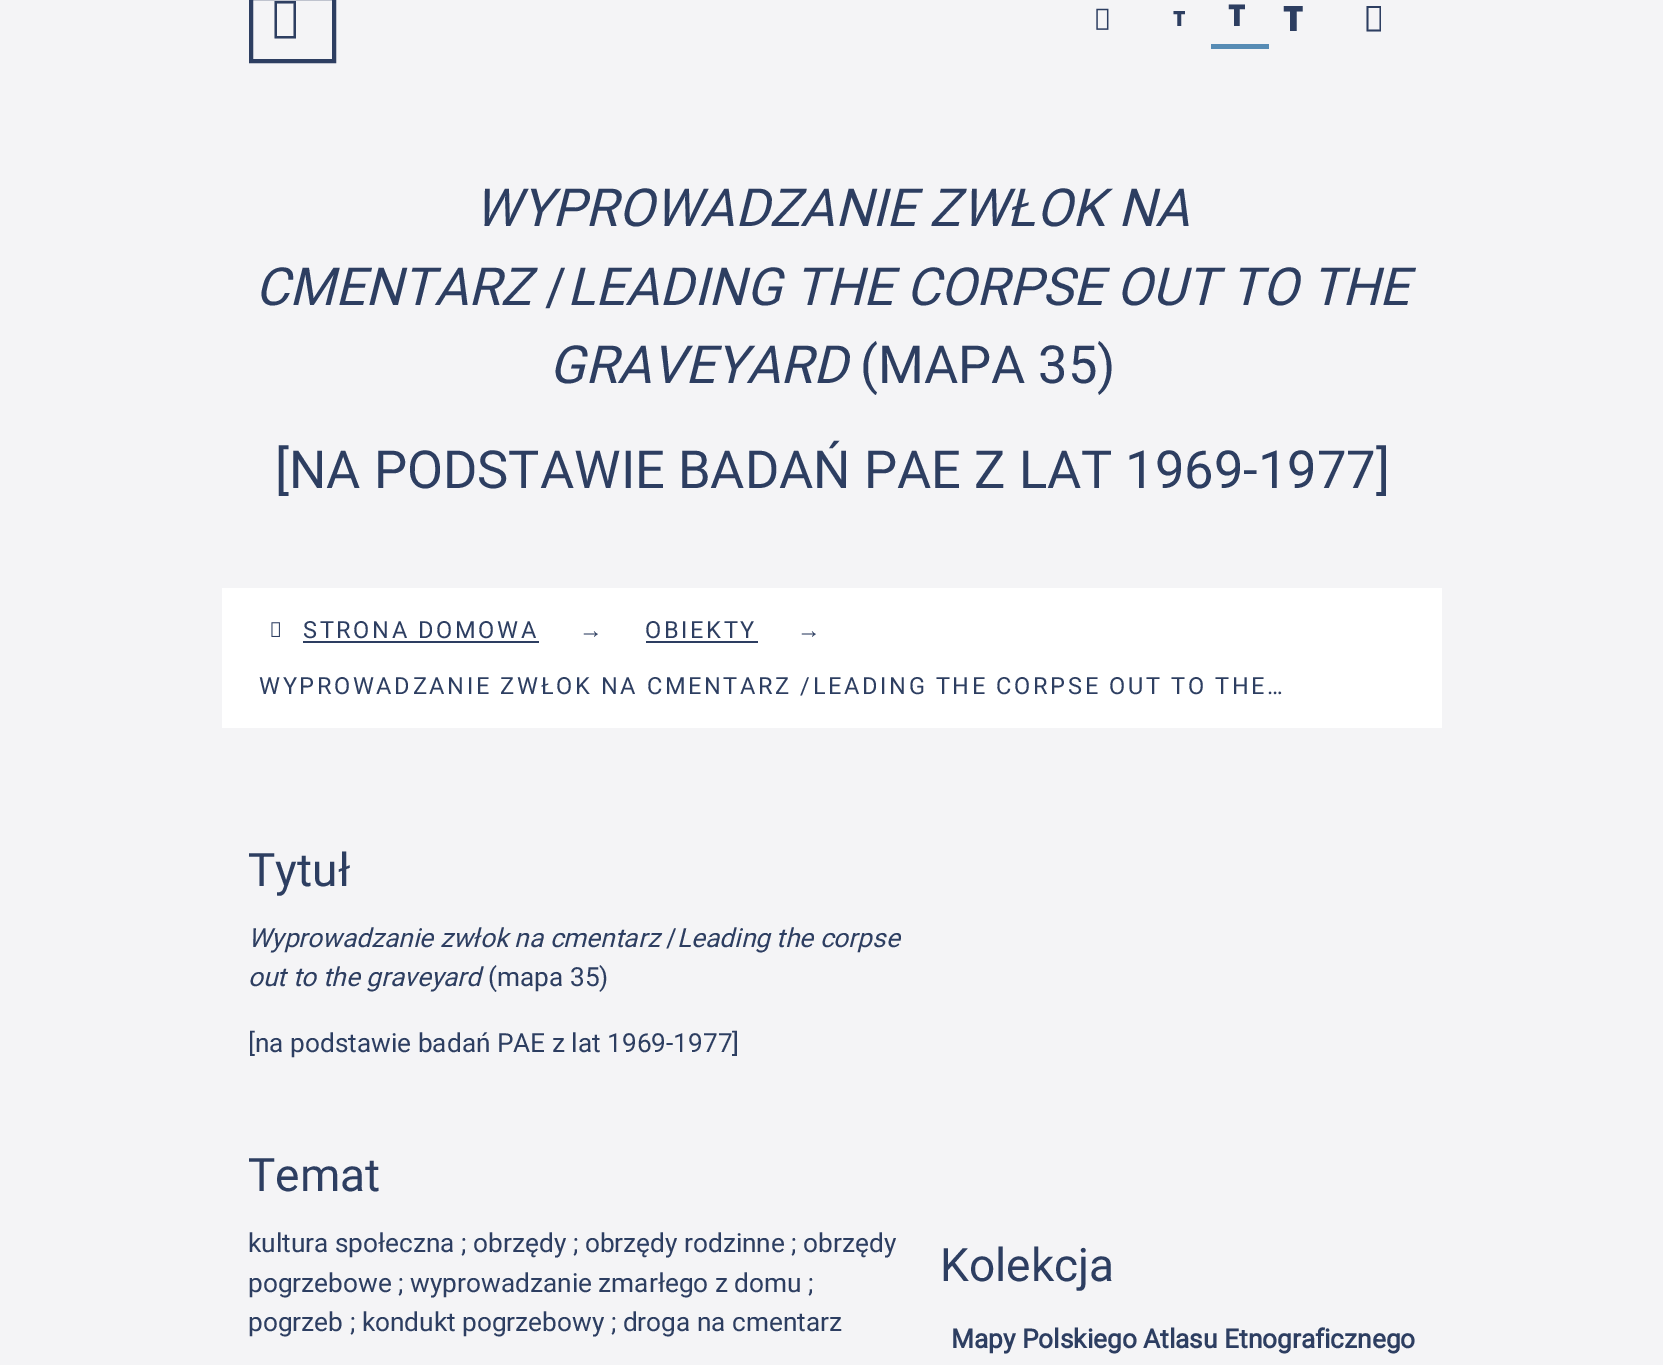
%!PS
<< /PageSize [1663 1365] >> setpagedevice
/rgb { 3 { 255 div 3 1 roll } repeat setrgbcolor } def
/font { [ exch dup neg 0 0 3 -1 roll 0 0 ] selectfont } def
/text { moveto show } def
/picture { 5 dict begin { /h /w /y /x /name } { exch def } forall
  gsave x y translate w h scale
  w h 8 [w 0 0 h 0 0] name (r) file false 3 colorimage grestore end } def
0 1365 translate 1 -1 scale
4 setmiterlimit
244 244 246 rgb
0 0 1663 1365 rectfill
45 62 97 rgb
4 setlinewidth
251 -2 83 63 rectstroke
274.5 38.5 moveto 0 -37.5 rlineto 21.5 0 rlineto 0 37.5 rlineto closepath 277 36 moveto 16.5 0 rlineto 0 -32.5 rlineto -16.5 0 rlineto closepath fill
(img_01.rgb) 1096 8 13 22 picture
87 140 181 rgb
1211 44 58 5 rectfill
45 62 97 rgb
1366.5 31.5 moveto 0 -25.5 rlineto 14.5 0 rlineto 0 25.5 rlineto closepath 1368.5 29.5 moveto 11 0 rlineto 0 -21.5 rlineto -11 0 rlineto closepath fill
255 255 255 rgb
222 588 1220 140 rectfill
(img_02.rgb) 271 622 9 15 picture
45 62 97 rgb
303 641 236 2 rectfill
646 641 112 2 rectfill
/NotoSans-Black 21 font
(T) 1173 26 text
/NotoSans-Black 30 font
(T) 1228 26 text
/NotoSans-Black 35 font
(T) 1283 31 text
/Roboto-Italic 52.5 font
(WYPROWADZANIE ZWŁOK NA) 474 226 text
(CMENTARZ) 255 305 text
/Roboto-Regular 52.5 font
(/) 545 305 text
/Roboto-Italic 52.5 font
(LEADING THE CORPSE OUT TO THE) 567 305 text
(GRAVEYARD) 549 383 text
/Roboto-Regular 52.5 font
(\(MAPA 35\)) 860 383 text
([NA PODSTAWIE BADAŃ PAE Z LAT 1969-1977]) 275 488 text
/Roboto-Regular 23.6 font
303 638 moveto 2.62 0 (STRONA DOMOWA) ashow
/LiberationSans-Regular 23.6 font
579 638 moveto 2.62 0 (→) ashow
/Roboto-Regular 23.6 font
645 638 moveto 2.62 0 (OBIEKTY) ashow
/LiberationSans-Regular 23.6 font
797 638 moveto 2.62 0 (→) ashow
/Roboto-Regular 23.6 font
259 694 moveto 2.62 0 (WYPROWADZANIE ZWŁOK NA CMENTARZ /LEADING THE CORPSE OUT TO THE…) ashow
/Roboto-Regular 46 font
(Tytuł) 248 886 text
/Roboto-Italic 26.25 font
(Wyprowadzanie zwłok na cmentarz) 248 947 text
/Roboto-Regular 26.25 font
(/) 666 947 text
/Roboto-Italic 26.25 font
(Leading the corpse) 677 947 text
(out to the graveyard) 248 986 text
/Roboto-Regular 26.25 font
(\(mapa 35\)) 488 986 text
([na podstawie badań PAE z lat 1969-1977]) 248 1052 text
/Roboto-Regular 46 font
(Temat) 248 1191 text
/Roboto-Regular 26.25 font
(kultura społeczna ; obrzędy ; obrzędy rodzinne ; obrzędy) 248 1252 text
(pogrzebowe ; wyprowadzanie zmarłego z domu ;) 248 1292 text
(pogrzeb ; kondukt pogrzebowy ; droga na cmentarz) 248 1331 text
/Roboto-Regular 46 font
(Kolekcja) 940 1281 text
/Roboto-Bold 26.25 font
(Mapy Polskiego Atlasu Etnograficznego) 951 1348 text
showpage
